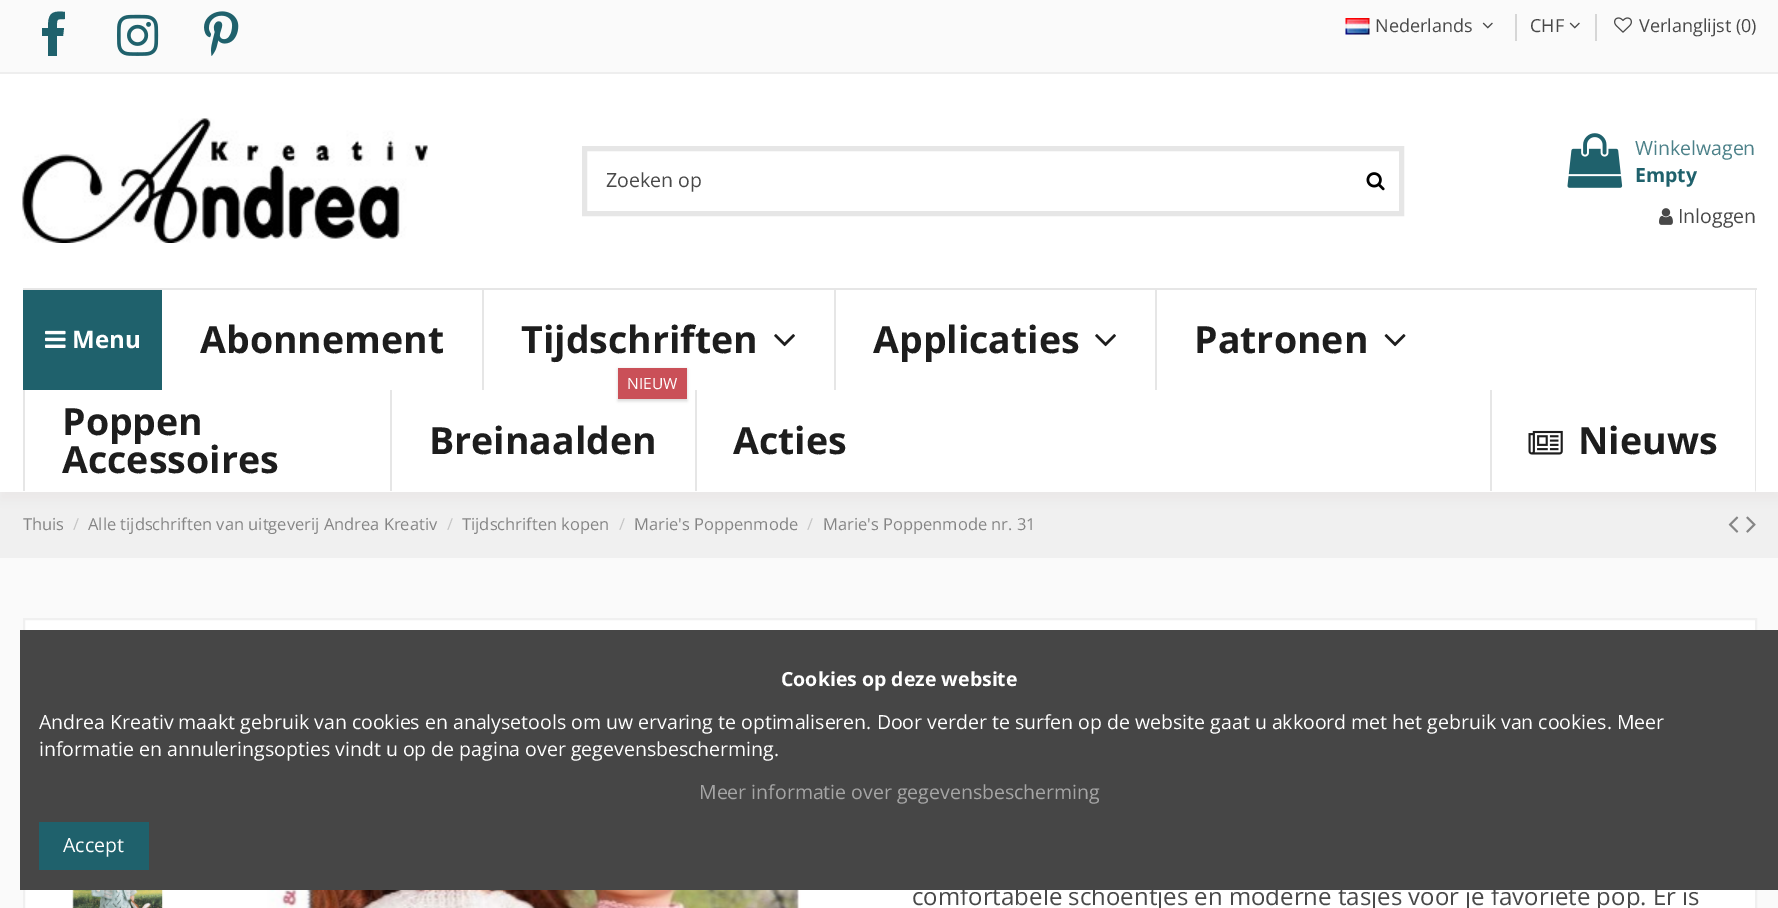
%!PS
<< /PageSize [1778 908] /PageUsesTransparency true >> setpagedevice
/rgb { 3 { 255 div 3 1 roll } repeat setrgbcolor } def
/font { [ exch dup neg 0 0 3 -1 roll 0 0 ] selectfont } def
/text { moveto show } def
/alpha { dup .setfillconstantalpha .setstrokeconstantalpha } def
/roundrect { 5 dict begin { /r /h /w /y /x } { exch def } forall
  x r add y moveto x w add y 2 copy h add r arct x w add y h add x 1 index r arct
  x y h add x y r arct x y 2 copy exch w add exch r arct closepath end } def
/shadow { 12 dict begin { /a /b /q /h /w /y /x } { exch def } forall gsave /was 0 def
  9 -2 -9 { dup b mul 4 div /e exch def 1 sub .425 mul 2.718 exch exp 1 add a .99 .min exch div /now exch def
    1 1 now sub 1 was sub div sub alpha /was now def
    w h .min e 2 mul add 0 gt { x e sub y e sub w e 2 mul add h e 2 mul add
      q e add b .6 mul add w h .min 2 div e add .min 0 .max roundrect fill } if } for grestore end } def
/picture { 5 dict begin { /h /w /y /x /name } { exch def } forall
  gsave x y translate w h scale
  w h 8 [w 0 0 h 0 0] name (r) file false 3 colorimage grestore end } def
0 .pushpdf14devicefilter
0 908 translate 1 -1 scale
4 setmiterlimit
250 250 250 rgb
0 0 1778 908 rectfill
240 240 240 rgb
0 492 1778 66 rectfill
(img_14.rgb) 1728 516 11 17 picture
(img_15.rgb) 1746 516 10 17 picture
234 231 231 rgb
0 8 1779 492 0 7 1 shadow
255 255 255 rgb
0 74 1778 418 rectfill
250 250 250 rgb
0 0 1778 72 rectfill
238 238 238 rgb
0 72 1778 2 rectfill
31 97 108 rgb
65 12 moveto 0 7 rlineto -9 0 -8 0 -8 9 rcurveto 7 0 rlineto -1 8 rlineto -6 0 rlineto 0 20 rlineto -9 0 rlineto 0 -20 rlineto -6 0 rlineto 0 -8 rlineto 6 0 rlineto 0 -13 2 -18 17 -16 rcurveto closepath fill
(img_01.rgb) 117 14 42 42 picture
(img_02.rgb) 204 11 35 45 picture
(img_03.rgb) 1345 18 25 17 picture
(img_04.rgb) 1482 22 11 7 picture
214 214 214 rgb
1515 14 2 27 rectfill
(img_04.rgb) 1569 22 11 7 picture
1595 14 2 27 rectfill
(img_05.rgb) 1614 17 18 16 picture
(img_06.rgb) 22 118 406 125 picture
230 230 230 rgb
5 setlinewidth
584.5 148.5 817 65 rectstroke
(img_07.rgb) 1366 172 19 19 picture
(img_08.rgb) 1567 133 56 55 picture
(img_09.rgb) 1659 208 14 17 picture
23 288 1734 2 rectfill
1756 288 moveto 0 204 rlineto -1 -2 rlineto 0 -200 rlineto closepath fill
482 290 2 100 rectfill
(img_10.rgb) 774 334 21 13 picture
834 290 2 100 rectfill
(img_10.rgb) 1095 334 21 13 picture
1155 290 2 100 rectfill
(img_11.rgb) 1384 334 22 13 picture
23 390 2 101 rectfill
390 390 2 101 rectfill
0 0 0 rgb
618 369 69 32 0 1.5 0.15 shadow
202 80 88 rgb
618 368 69 31 rectfill
230 230 230 rgb
695 390 2 101 rectfill
1490 390 2 101 rectfill
(img_12.rgb) 1528 430 35 25 picture
31 97 108 rgb
23 290 139 100 rectfill
(img_13.rgb) 45 330 21 18 picture
255 255 255 rgb
24 619 moveto 1732 0 rlineto 0 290 rlineto -1732 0 rlineto closepath gsave fill grestore
240 240 240 rgb
2 setlinewidth
stroke
(img_16.rgb) 72 890 92 18 picture
(img_17.rgb) 267 890 534 18 picture
/OpenSans-Regular 18 font
72 72 72 rgb
(Nederlands) 1375 32 text
(CHF) 1530 32 text
(Verlanglijst \(0\)) 1639 32 text
/OpenSans-Regular 19.5 font
(Zoeken op) 606 187 text
76 129 137 rgb
(Winkelwagen) 1635 155 text
/OpenSans-Bold 19.5 font
31 97 108 rgb
(Empty) 1635 182 text
/OpenSans-Regular 19.5 font
72 72 72 rgb
(Inloggen) 1678 223 text
/OpenSans-Bold 37.5 font
29 29 29 rgb
(Abonnement) 200 353 text
(Tijdschriften) 521 353 text
(Applicaties) 873 353 text
(Patronen) 1194 353 text
(Poppen) 62 435 text
(Accessoires) 62 473 text
/OpenSans-Regular 15.5 font
255 255 255 rgb
(NIEUW) 627 389 text
/OpenSans-Bold 37.5 font
29 29 29 rgb
(Breinaalden) 429 454 text
(Acties) 733 454 text
(Nieuws) 1578 454 text
/OpenSans-Bold 24 font
255 255 255 rgb
(Menu) 72 348 text
/OpenSans-Regular 16.5 font
133 133 133 rgb
(Thuis) 23 530 text
197 197 197 rgb
(/) 73 530 text
133 133 133 rgb
(Alle tijdschriften van uitgeverij Andrea Kreativ) 88 530 text
197 197 197 rgb
(/) 447 530 text
133 133 133 rgb
(Tijdschriften kopen) 462 530 text
197 197 197 rgb
(/) 619 530 text
133 133 133 rgb
(Marie's Poppenmode) 634 530 text
197 197 197 rgb
(/) 807 530 text
133 133 133 rgb
(Marie's Poppenmode nr. 31) 823 530 text
/OpenSans-Regular 24 font
72 72 72 rgb
(comfortabele schoentjes en moderne tasjes voor je favoriete pop. Er is) 912 905 text
70 70 70 rgb
20 630 1758 260 rectfill
/OpenSans-Bold 19.5 font
255 255 255 rgb
(Cookies op deze website) 781 686 text
/OpenSans-Regular 19.5 font
(Andrea Kreativ maakt gebruik van cookies en analysetools om uw ervaring te optimaliseren. Door verder te surfen op de website gaat u akkoord met het gebruik van cookies. Meer) 39 729 text
(informatie en annuleringsopties vindt u op de pagina over gegevensbescherming.) 39 756 text
165 165 165 rgb
(Meer informatie over gegevensbescherming) 699 799 text
31 97 108 rgb
39 822 110 48 rectfill
255 255 255 rgb
(Accept) 63 852 text
.poppdf14devicefilter showpage
